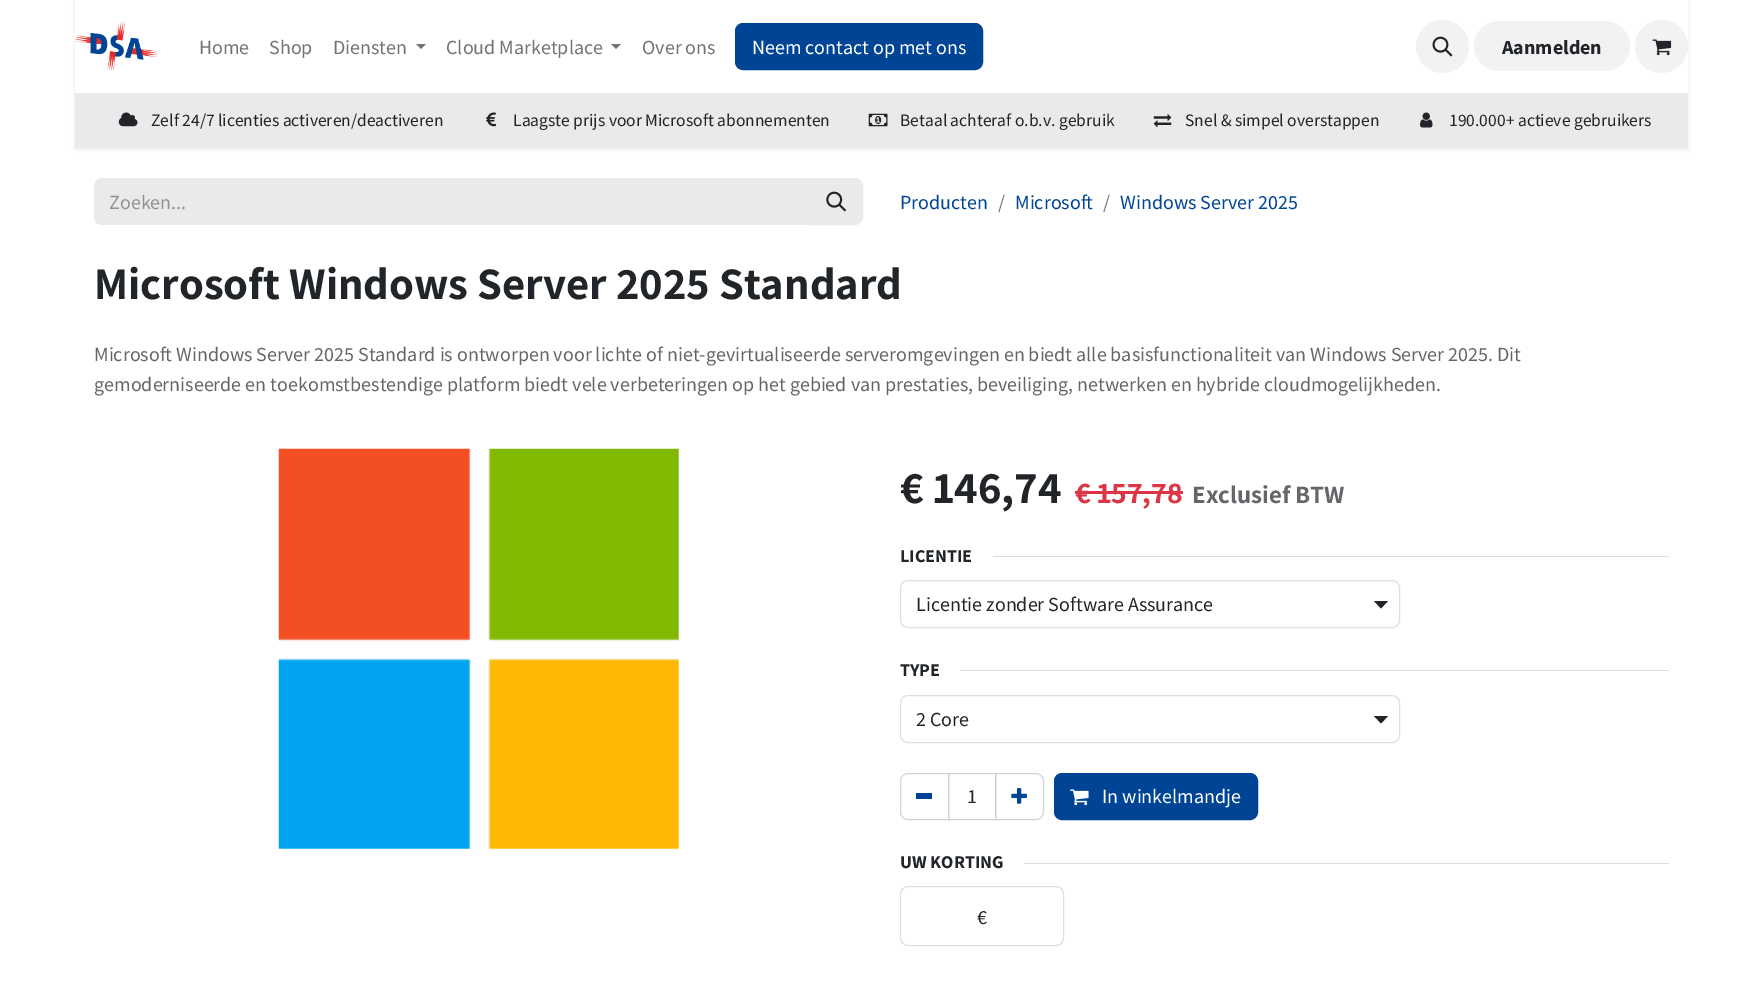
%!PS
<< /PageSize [1762 997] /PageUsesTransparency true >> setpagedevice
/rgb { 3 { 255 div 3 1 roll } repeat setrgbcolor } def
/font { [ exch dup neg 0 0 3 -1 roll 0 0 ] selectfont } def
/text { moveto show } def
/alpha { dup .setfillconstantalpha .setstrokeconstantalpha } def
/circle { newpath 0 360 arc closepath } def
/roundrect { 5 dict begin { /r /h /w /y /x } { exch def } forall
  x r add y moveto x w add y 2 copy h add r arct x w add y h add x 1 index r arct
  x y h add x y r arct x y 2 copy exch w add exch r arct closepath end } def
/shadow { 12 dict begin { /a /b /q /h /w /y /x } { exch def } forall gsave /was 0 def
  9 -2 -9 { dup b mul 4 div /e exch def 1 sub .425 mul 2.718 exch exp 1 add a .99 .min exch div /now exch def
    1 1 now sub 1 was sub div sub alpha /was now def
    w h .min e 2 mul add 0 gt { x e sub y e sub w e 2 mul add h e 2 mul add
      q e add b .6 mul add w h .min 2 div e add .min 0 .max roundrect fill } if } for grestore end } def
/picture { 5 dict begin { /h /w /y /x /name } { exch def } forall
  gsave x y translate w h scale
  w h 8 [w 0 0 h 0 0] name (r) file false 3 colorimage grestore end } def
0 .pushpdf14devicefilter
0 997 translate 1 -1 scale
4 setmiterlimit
255 255 255 rgb
0 0 1762 997 rectfill
0 0 0 rgb
75 1 1613 148 0 2 0.1 shadow
255 255 255 rgb
75 0 1613 93 rectfill
(img_01.rgb) 75 21 84 50 picture
115 115 115 rgb
416 44 moveto 10 0 rlineto -5 5 rlineto closepath fill
611 44 moveto 10 0 rlineto -5 5 rlineto closepath fill
0 69 149 rgb
735.5 23.5 247 46 7.5 roundrect gsave fill grestore
stroke
242 242 242 rgb
1442.5 46.5 26.5 circle fill
(img_02.rgb) 1432 36 21 21 picture
1474 21 156 50 25 roundrect fill
1661.5 46.5 26.5 circle fill
(img_03.rgb) 1652 39 20 17 picture
234 234 234 rgb
75 93 1613 55 rectfill
(img_04.rgb) 118 112 20 15 picture
(img_05.rgb) 486 112 11 15 picture
(img_06.rgb) 868 113 20 14 picture
(img_07.rgb) 1153 114 19 14 picture
(img_08.rgb) 1420 112 13 16 picture
102 178 moveto 709 0 rlineto 0 47 rlineto -709 0 rlineto -4.5 0 -8 -3.5 -8 -8 rcurveto 0 -31 rlineto 0 -4.5 3.5 -8 8 -8 rcurveto closepath fill
810.5 178.5 moveto 44.5 0 rlineto 4 0 7.5 3.5 7.5 7.5 rcurveto 0 31 rlineto 0 4 -3.5 7.5 -7.5 7.5 rcurveto -44.5 0 rlineto closepath gsave fill grestore
stroke
(img_09.rgb) 826 191 21 21 picture
(img_10.rgb) 278 448 401 401 picture
220 53 69 rgb
1075 491 108 3 rectfill
222 222 223 rgb
993 556 676 1 rectfill
33 37 41 rgb
1374 601 moveto 14 0 rlineto -7 7.5 rlineto closepath fill
222 222 223 rgb
900.5 580.5 499 47 7.5 roundrect stroke
960 670 709 1 rectfill
33 37 41 rgb
1374 716 moveto 14 0 rlineto -7 7.5 rlineto closepath fill
222 222 223 rgb
900.5 695.5 499 47 7.5 roundrect stroke
206 212 218 rgb
948.5 773.5 47 46 rectstroke
908 773.5 moveto 40.5 0 rlineto 0 46 rlineto -40.5 0 rlineto -4 0 -7.5 -3.5 -7.5 -7.5 rcurveto 0 -31 rlineto 0 -4 3.5 -7.5 7.5 -7.5 rcurveto closepath stroke
0 69 149 rgb
916 793 16 6 rectfill
206 212 218 rgb
995.5 773.5 moveto 40.5 0 rlineto 4 0 7.5 3.5 7.5 7.5 rcurveto 0 31 rlineto 0 4 -3.5 7.5 -7.5 7.5 rcurveto -40.5 0 rlineto closepath stroke
(img_11.rgb) 1011 788 16 16 picture
0 69 149 rgb
1054.5 773.5 203 46 7.5 roundrect gsave fill grestore
stroke
(img_12.rgb) 1070 789 19 17 picture
222 222 223 rgb
1024 863 645 1 rectfill
900.5 886.5 163 59 7.5 roundrect stroke
/SourceSansPro-Regular 20 font
115 115 115 rgb
(Home) 199 54 text
(Shop) 269 54 text
(Diensten) 333 54 text
(Cloud Marketplace) 446 54 text
(Over ons) 642 54 text
255 255 255 rgb
(Neem contact op met ons) 752 54 text
/SourceSansPro-Bold 20 font
33 37 41 rgb
(Aanmelden) 1502 54 text
/SourceSansPro-Regular 17.5 font
(Zelf 24/7 licenties activeren/deactiveren) 151 126 text
(Laagste prijs voor Microsoft abonnementen) 513 126 text
(Betaal achteraf o.b.v. gebruik) 900 126 text
(Snel & simpel overstappen) 1185 126 text
(190.000+ actieve gebruikers) 1449 126 text
/SourceSansPro-Regular 20 font
144 146 148 rgb
(Zoeken...) 109 209 text
0 69 149 rgb
(Producten) 900 209 text
108 117 125 rgb
(/) 998 209 text
0 69 149 rgb
(Microsoft) 1015 209 text
108 117 125 rgb
(/) 1103 209 text
0 69 149 rgb
(Windows Server 2025) 1120 209 text
/Assistant-Bold 45 font
33 37 41 rgb
(Microsoft Windows Server 2025 Standard) 94 299 text
/SourceSansPro-Regular 20 font
100 102 105 rgb
(Microsoft Windows Server 2025 Standard is ontworpen voor lichte of niet-gevirtualiseerde serveromgevingen en biedt alle basisfunctionaliteit van Windows Server 2025. Dit) 94 361 text
(gemoderniseerde en toekomstbestendige platform biedt vele verbeteringen op het gebied van prestaties, beveiliging, netwerken en hybride cloudmogelijkheden.) 94 391 text
/Assistant-Bold 45 font
33 37 41 rgb
(€ 146,74) 900 503 text
/Assistant-Bold 30 font
220 53 69 rgb
(€ 157,78) 1075 503 text
/Assistant-Bold 25 font
100 102 105 rgb
(Exclusief BTW) 1192 503 text
/SourceSansPro-Bold 18 font
33 37 41 rgb
(LICENTIE) 900 562 text
/SourceSansPro-Regular 20 font
(Licentie zonder Software Assurance) 916 611 text
/SourceSansPro-Bold 18 font
(TYPE) 900 676 text
/SourceSansPro-Regular 20 font
(2 Core) 916 726 text
(1) 967 803 text
255 255 255 rgb
(In winkelmandje) 1102 803 text
/SourceSansPro-Bold 18 font
33 37 41 rgb
(UW KORTING) 900 868 text
/SourceSansPro-Regular 20 font
(€) 977 924 text
.poppdf14devicefilter showpage
